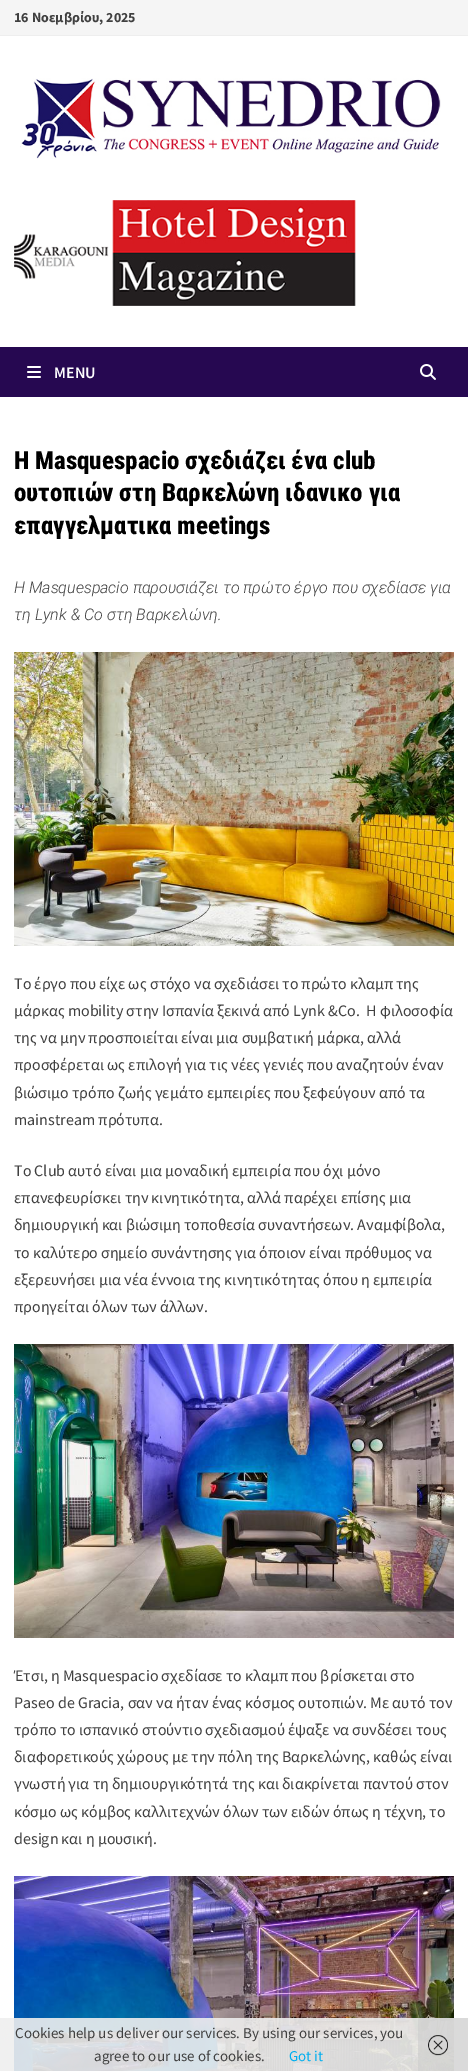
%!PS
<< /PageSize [468 2071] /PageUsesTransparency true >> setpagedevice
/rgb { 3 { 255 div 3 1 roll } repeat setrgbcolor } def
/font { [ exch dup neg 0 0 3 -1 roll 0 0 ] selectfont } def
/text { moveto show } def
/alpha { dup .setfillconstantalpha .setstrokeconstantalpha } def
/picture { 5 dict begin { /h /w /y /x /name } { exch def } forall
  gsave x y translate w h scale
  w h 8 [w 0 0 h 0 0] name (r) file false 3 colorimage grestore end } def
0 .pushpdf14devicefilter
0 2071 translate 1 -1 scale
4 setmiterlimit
255 255 255 rgb
0 0 468 2071 rectfill
245 245 245 rgb
0 0 468 35 rectfill
238 238 238 rgb
0 35 468 1 rectfill
(img_01.rgb) 20 78 421 81 picture
(img_02.rgb) 14 200 342 106 picture
38 8 81 rgb
0 347 468 50 rectfill
(img_03.rgb) 27 366 14 12 picture
(img_04.rgb) 420 364 16 16 picture
(img_05.rgb) 14 652 440 294 picture
(img_06.rgb) 14 1344 440 294 picture
(img_07.rgb) 14 1876 440 195 picture
0.9 alpha
238 238 238 rgb
0 2018 468 53 rectfill
0.6 alpha
204 204 204 rgb
418 2018 50 53 rectfill
1 alpha
(img_08.rgb) 428 2035 20 21 picture
/SourceSansPro-Bold 14 font
64 64 64 rgb
(16 Νοεμβρίου, 2025) 14 22 text
/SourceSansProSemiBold-SemiBold 16 font
255 255 255 rgb
(MENU) 54 378 text
/RobotoCondensed-ExtraBold 25 font
0 0 0 rgb
(Η Masquespacio σχεδιάζει ένα club) 14 469 text
(ουτοπιών στη Βαρκελώνη ιδανικο για) 14 501 text
(επαγγελματικα meetings) 14 534 text
/Roboto-LightItalic 16 font
64 64 64 rgb
(Η Masquespacio παρουσιάζει το πρώτο έργο που σχεδίασε για) 14 593 text
14 620 moveto 0.25 0 32 (τη Lynk & Co στη Βαρκελώνη.) widthshow
/SourceSansPro-Regular 16 font
(Το έργο που είχε ως στόχο να σχεδιάσει το πρώτο κλαμπ της) 14 989 text
(μάρκας mobility στην Ισπανία ξεκινά από Lynk &Co.  Η φιλοσοφία) 14 1016 text
(της να μην προσποιείται είναι μια συμβατική μάρκα, αλλά) 14 1043 text
(προσφέρεται ως επιλογή για τις νέες γενιές που αναζητούν έναν) 14 1070 text
(βιώσιμο τρόπο ζωής γεμάτο εμπειρίες που ξεφεύγουν από τα) 14 1098 text
(mainstream πρότυπα.) 14 1125 text
(Το Club αυτό είναι μια μοναδική εμπειρία που όχι μόνο) 14 1176 text
(επανεφευρίσκει την κινητικότητα, αλλά παρέχει επίσης μια) 14 1203 text
(δημιουργική και βιώσιμη τοποθεσία συναντήσεων. Αναμφίβολα,) 14 1230 text
(το καλύτερο σημείο συνάντησης για όποιον είναι πρόθυμος να) 14 1258 text
(εξερευνήσει μια νέα έννοια της κινητικότητας όπου η εμπειρία) 14 1285 text
(προηγείται όλων των άλλων.) 14 1312 text
(Έτσι, η Masquespacio σχεδίασε το κλαμπ που βρίσκεται στο) 14 1681 text
(Paseo de Gracia, σαν να ήταν ένας κόσμος ουτοπιών. Με αυτό τον) 14 1708 text
(τρόπο το ισπανικό στούντιο σχεδιασμού έψαξε να συνδέσει τους) 14 1735 text
(διαφορετικούς χώρους με την πόλη της Βαρκελώνης, καθώς είναι) 14 1762 text
(γνωστή για τη δημιουργικότητά της και διακρίνεται παντού στον) 14 1789 text
(κόσμο ως κόμβος καλλιτεχνών όλων των ειδών όπως η τέχνη, το) 14 1817 text
(design και η μουσική.) 14 1844 text
/SourceSansPro-Regular 15 font
(Cookies help us deliver our services. By using our services, you) 15 2038 text
(agree to our use of cookies.) 94 2061 text
0 174 239 rgb
(Got it) 289 2061 text
.poppdf14devicefilter showpage
